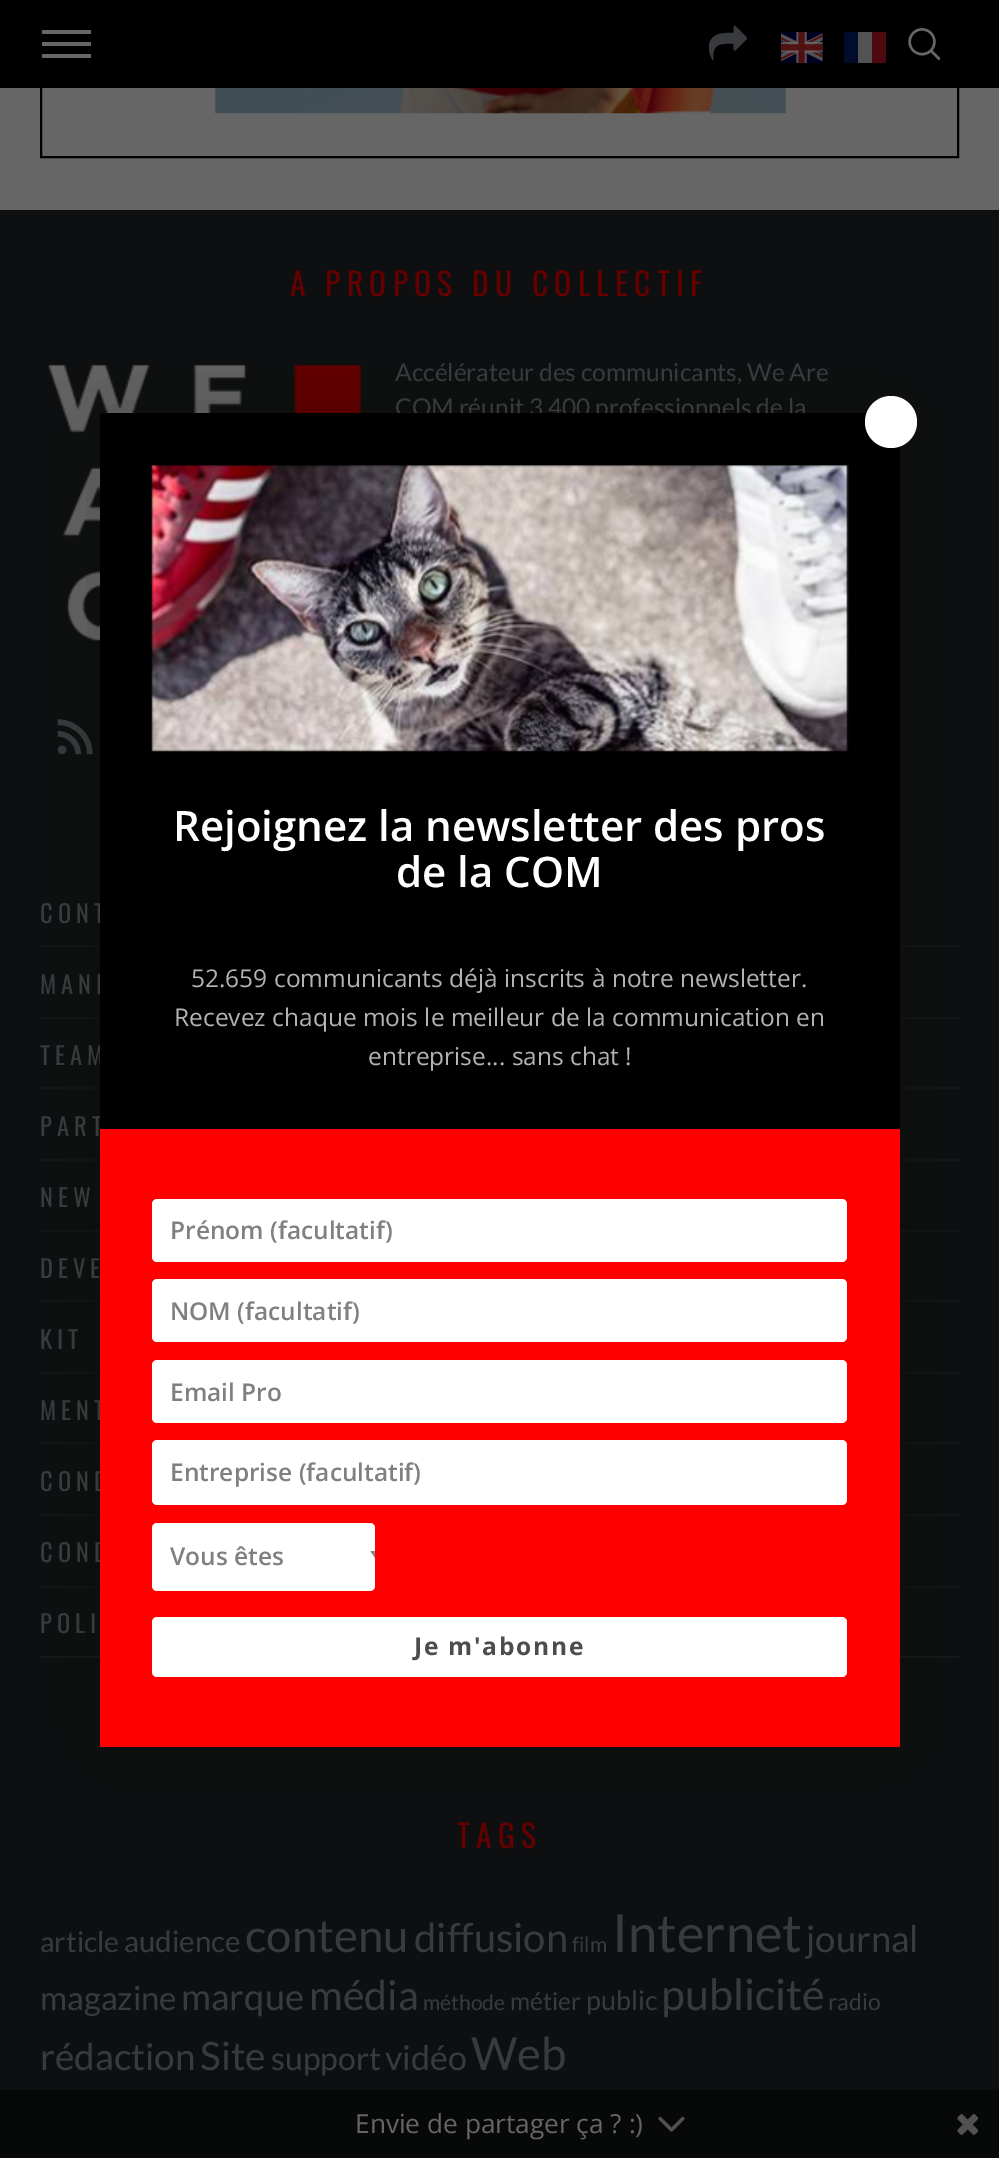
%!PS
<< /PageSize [999 2158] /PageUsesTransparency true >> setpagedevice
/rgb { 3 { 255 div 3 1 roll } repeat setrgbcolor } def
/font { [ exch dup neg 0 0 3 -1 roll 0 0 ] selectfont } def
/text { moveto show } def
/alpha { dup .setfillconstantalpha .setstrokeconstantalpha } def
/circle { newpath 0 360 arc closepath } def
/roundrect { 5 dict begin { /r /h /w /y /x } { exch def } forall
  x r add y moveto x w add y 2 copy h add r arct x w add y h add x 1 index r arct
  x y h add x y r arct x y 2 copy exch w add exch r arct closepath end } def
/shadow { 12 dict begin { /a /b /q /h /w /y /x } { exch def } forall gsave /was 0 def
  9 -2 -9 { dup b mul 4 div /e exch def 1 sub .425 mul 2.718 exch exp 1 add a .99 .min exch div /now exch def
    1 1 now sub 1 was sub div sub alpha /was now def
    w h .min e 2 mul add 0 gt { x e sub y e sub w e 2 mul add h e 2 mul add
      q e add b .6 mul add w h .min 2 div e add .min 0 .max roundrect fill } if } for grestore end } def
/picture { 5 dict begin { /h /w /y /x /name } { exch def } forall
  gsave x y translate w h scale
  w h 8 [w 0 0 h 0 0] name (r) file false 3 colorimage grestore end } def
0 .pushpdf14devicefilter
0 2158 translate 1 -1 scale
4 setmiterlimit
102 102 102 rgb
0 0 999 2158 rectfill
0 0 0 rgb
2 setlinewidth
41 -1 917 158 rectstroke
(img_01.rgb) 215 88 571 26 picture
0 0 999 88 rectfill
102 102 102 rgb
42 42 49 4 rectfill
42 30 49 4 rectfill
42 54 49 4 rectfill
(img_02.rgb) 709 25 38 36 picture
(img_03.rgb) 781 32 42 31 picture
0 12 41 rgb
844 32 14 31 rectfill
82 82 82 rgb
858 32 14 31 rectfill
78 8 15 rgb
872 32 14 31 rectfill
(img_04.rgb) 908 28 32 32 picture
14 15 16 rgb
0 210 999 1880 rectfill
(img_05.rgb) 48 364 313 277 picture
(img_06.rgb) 57 719 36 36 picture
20 21 23 rgb
40 945 919 2 rectfill
40 1017 919 2 rectfill
40 1087 919 2 rectfill
40 1159 919 2 rectfill
40 1230 919 2 rectfill
40 1300 919 2 rectfill
40 1372 919 2 rectfill
40 1442 919 2 rectfill
40 1514 919 2 rectfill
40 1586 919 2 rectfill
23 24 25 rgb
40 1656 919 2 rectfill
0 0 0 rgb
100 413 800 1334 0 52.5 0.2 shadow
7 8 8 rgb
0 2090 999 68 rectfill
(img_08.rgb) 658 2116 27 16 picture
(img_09.rgb) 957 2114 22 21 picture
/Oswald-Regular 31.5 font
102 0 0 rgb
290 296 moveto 6.3 0 (A PROPOS DU COLLECTIF) ashow
/Lato-Regular 24.5 font
56 58 62 rgb
(Accélérateur des communicants, We Are) 395 381 text
(COM réunit 3.400 professionnels de la) 395 416 text
/Oswald-Regular 24.5 font
40 923 moveto 5 0 (CONT) ashow
40 994 moveto 5 0 (MANI) ashow
40 1065 moveto 5 0 (TEAM) ashow
40 1136 moveto 5 0 (PART) ashow
40 1207 moveto 5 0 (NEW) ashow
40 1278 moveto 5 0 (DEVE) ashow
40 1349 moveto 5 0 (KIT) ashow
40 1420 moveto 5 0 (MENT) ashow
40 1491 moveto 5 0 (COND) ashow
40 1562 moveto 5 0 (COND) ashow
40 1633 moveto 5 0 (POLI) ashow
/Oswald-Regular 31.5 font
102 0 0 rgb
457 1848 moveto 6.3 0 (TAGS) ashow
/Lato-Regular 28.5 font
56 58 62 rgb
(article) 40 1952 text
/Lato-Regular 29.5 font
(audience) 124 1952 text
/Lato-Regular 45.5 font
(contenu) 245 1952 text
/Lato-Regular 40 font
(diffusion) 414 1952 text
/Lato-Regular 21 font
(film) 572 1952 text
/Lato-Regular 52.5 font
(Internet) 612 1952 text
/Lato-Regular 36.5 font
(journal) 806 1952 text
/Lato-Regular 33 font
(magazine) 40 2010 text
/Lato-Regular 36.5 font
(marque) 181 2010 text
/Lato-Regular 41 font
(média) 309 2010 text
/Lato-Regular 21 font
(méthode) 423 2010 text
/Lato-Regular 24.5 font
(métier) 510 2010 text
/Lato-Regular 27 font
(public) 586 2010 text
/Lato-Regular 43 font
(publicité) 661 2010 text
/Lato-Regular 23 font
(radio) 828 2010 text
/Lato-Regular 37 font
(rédaction) 40 2070 text
/Lato-Regular 39 font
(Site) 200 2070 text
/Lato-Regular 32 font
(support) 271 2070 text
/Lato-Regular 34 font
(vidéo) 385 2070 text
/Lato-Regular 45.5 font
(Web) 471 2070 text
0 0 0 rgb
100 413 800 716 rectfill
255 255 255 rgb
891 422 26 circle fill
(img_07.rgb) 151 465 698 287 picture
/OpenSans-SemiBold 42 font
(Rejoignez la newsletter des pros) 173 841 text
(de la COM) 396 887 text
/OpenSans-Regular 24.5 font
179 179 179 rgb
(52.659 communicants déjà inscrits à notre newsletter.) 191 987 text
(Recevez chaque mois le meilleur de la communication en) 174 1026 text
(entreprise... sans chat !) 368 1065 text
255 0 0 rgb
100 1129 800 618 rectfill
255 255 255 rgb
152 1199 695 63 5 roundrect fill
/OpenSans-SemiBold 24.5 font
128 128 128 rgb
(Prénom \(facultatif\)) 170 1239 text
255 255 255 rgb
152 1279 695 63 5 roundrect fill
128 128 128 rgb
(NOM \(facultatif\)) 170 1320 text
255 255 255 rgb
152 1360 695 63 5 roundrect fill
128 128 128 rgb
(Email Pro) 170 1401 text
255 255 255 rgb
152 1440 695 65 5 roundrect fill
128 128 128 rgb
(Entreprise \(facultatif\)) 170 1481 text
255 255 255 rgb
152 1523 223 68 5 roundrect fill
gsave
369 1551 16 10 rectclip
138 138 138 rgb
370 1550.5 moveto 5 0 rlineto 0 7.5 rlineto closepath fill
grestore
128 128 128 rgb
(Vous êtes) 170 1565 text
255 255 255 rgb
152 1617 695 60 5 roundrect fill
/OpenSans-Bold 24.5 font
77 77 77 rgb
414 1655 moveto 1.75 0 (Je m'abonne) ashow
/OpenSans-Regular 26.25 font
102 102 102 rgb
(Envie de partager ça ? :\)) 355 2133 text
.poppdf14devicefilter showpage
